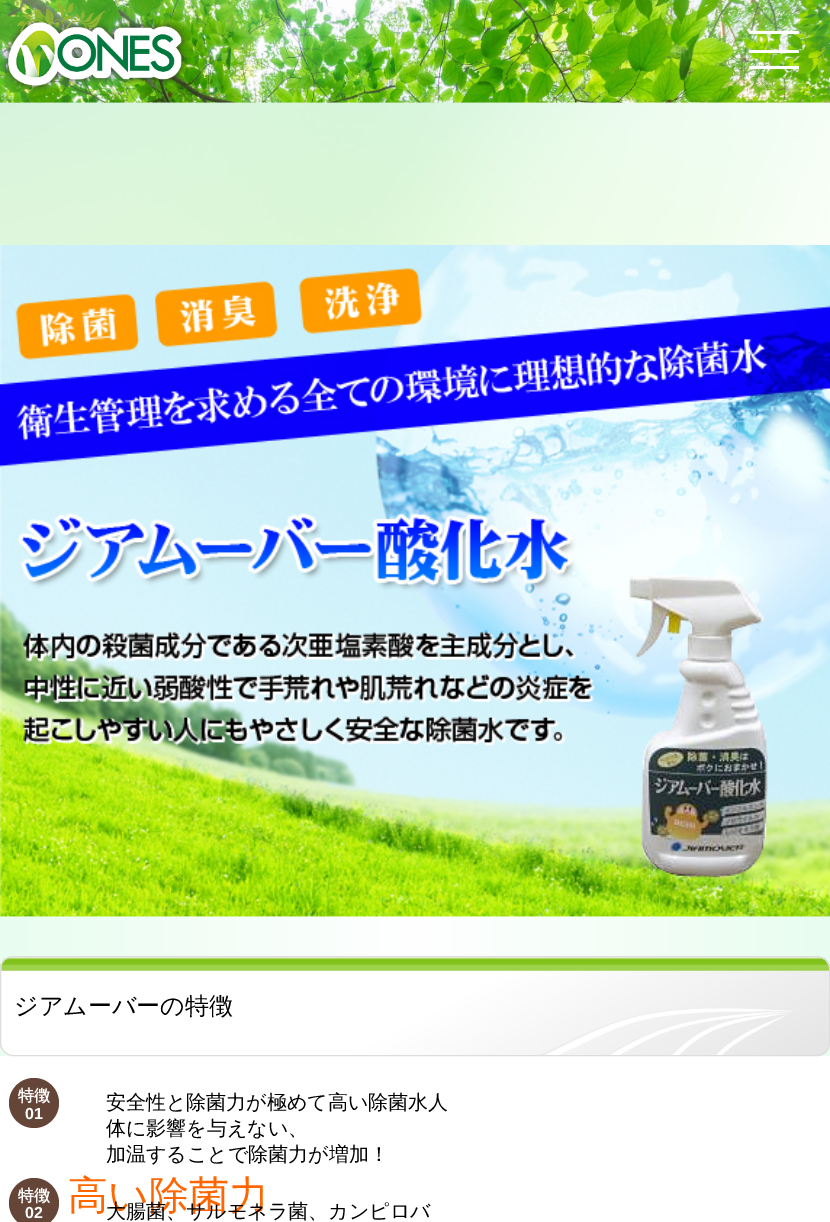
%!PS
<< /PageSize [830 1222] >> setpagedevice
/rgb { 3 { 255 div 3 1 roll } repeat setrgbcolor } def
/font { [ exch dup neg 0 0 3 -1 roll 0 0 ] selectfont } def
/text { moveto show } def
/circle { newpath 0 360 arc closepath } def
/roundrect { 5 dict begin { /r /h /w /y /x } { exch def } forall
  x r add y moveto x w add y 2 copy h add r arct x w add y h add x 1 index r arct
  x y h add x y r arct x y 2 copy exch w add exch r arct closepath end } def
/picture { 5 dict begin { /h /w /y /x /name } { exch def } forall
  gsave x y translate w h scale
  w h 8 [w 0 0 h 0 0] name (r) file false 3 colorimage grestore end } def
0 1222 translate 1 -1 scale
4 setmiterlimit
255 255 255 rgb
0 0 830 1222 rectfill
gsave 0 916 moveto 830 0 rlineto 0 140 rlineto -830 0 rlineto closepath clip newpath
<< /ShadingType 2 /ColorSpace /DeviceRGB /Coords [0 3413 830 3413] /Extend [true true] /Function << /FunctionType 3 /Domain [0 1] /Functions [<< /FunctionType 2 /Domain [0 1] /C0 [0.91 0.992 0.937] /C1 [1 1 1] /N 1 >> << /FunctionType 2 /Domain [0 1] /C0 [1 1 1] /C1 [0.91 0.992 0.937] /N 1 >>] /Bounds [0.5] /Encode [0 1 0 1] >> >> shfill grestore
(img_03.rgb) 0 102 830 143 picture
(img_01.rgb) 0 0 830 103 picture
(img_02.rgb) 1 0 187 92 picture
749 31 50 3 1.5 roundrect fill
749 50 50 3 1.5 roundrect fill
749 66 50 3 1.5 roundrect fill
(img_04.rgb) 0 916 830 1 picture
(img_06.rgb) 0 916 830 1 picture
(img_05.rgb) 0 245 830 672 picture
(img_07.rgb) 0 957 830 99 picture
221 221 221 rgb
0.5 956.5 829 99 12.5 roundrect stroke
102 69 57 rgb
34 1103 25 circle fill
34 1203 25 circle fill
/WenQuanYiZenHei-Medium 24 font
0 0 0 rgb
(ジアムーバーの特徴) 14 1014 text
/WenQuanYiZenHei-Bold 16 font
255 255 255 rgb
(特徴) 18 1101 text
/LiberationSans-Bold 16 font
(01) 25 1119 text
/WenQuanYiZenHei-Medium 20 font
0 0 0 rgb
(安全性と除菌力が極めて高い除菌水人) 106 1109 text
(体に影響を与えない、) 106 1135 text
(加温することで除菌力が増加！) 106 1161 text
/WenQuanYiZenHei-Bold 16 font
255 255 255 rgb
(特徴) 18 1201 text
/LiberationSans-Bold 16 font
(02) 25 1218 text
/WenQuanYiZenHei-Medium 40 font
255 102 0 rgb
(高い除菌力) 68 1209 text
/WenQuanYiZenHei-Medium 20 font
0 0 0 rgb
(大腸菌、サルモネラ菌、カンピロバ) 106 1218 text
showpage
